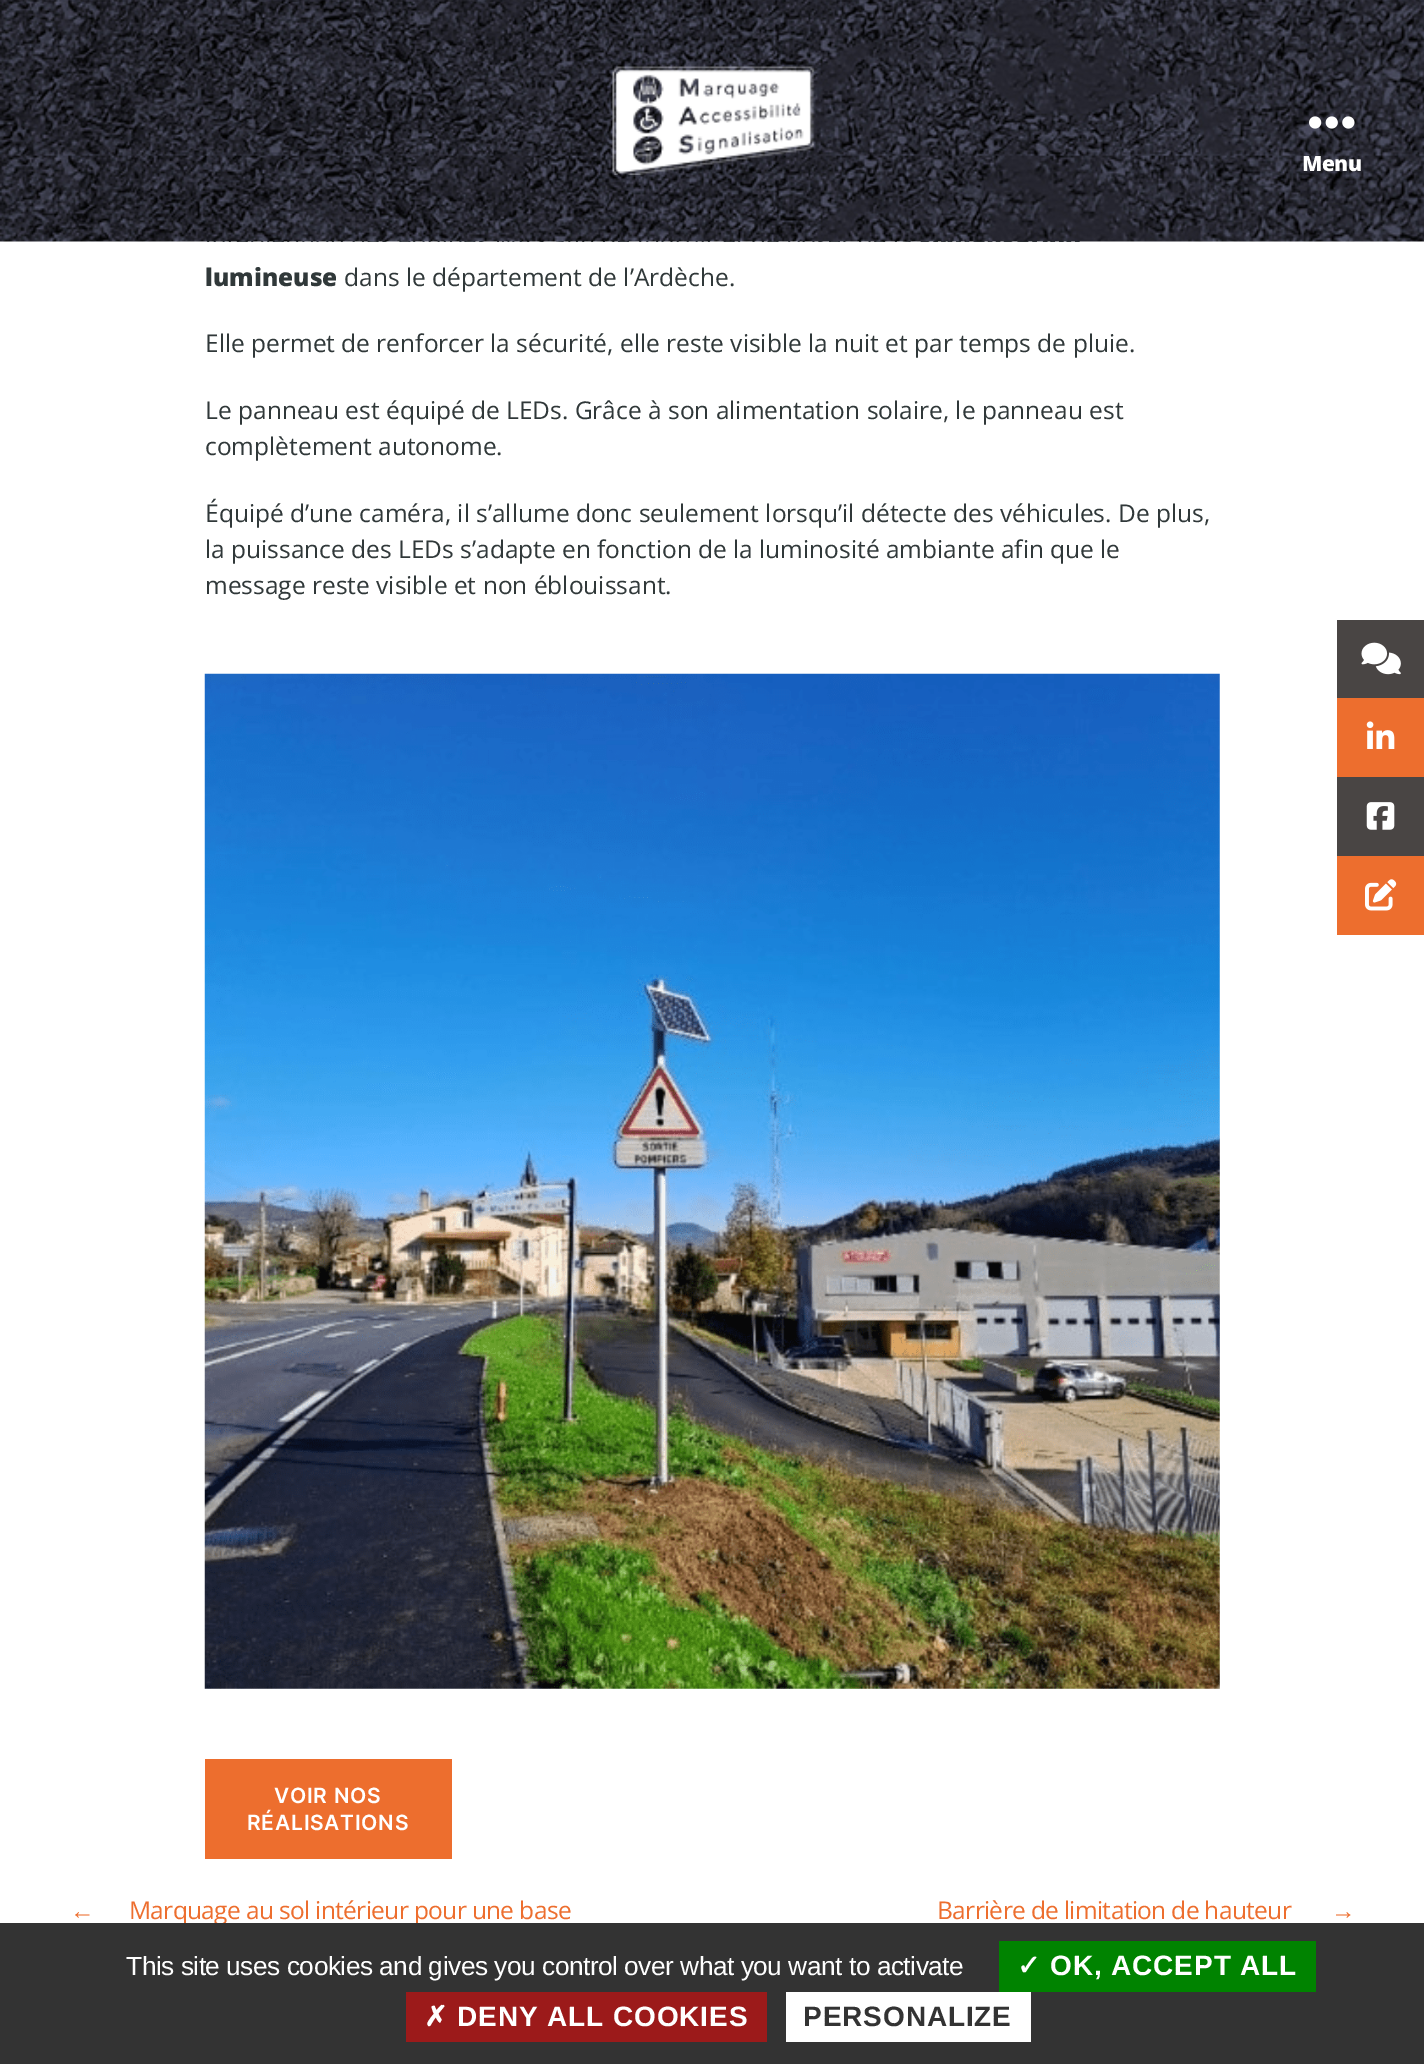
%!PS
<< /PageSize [1424 2064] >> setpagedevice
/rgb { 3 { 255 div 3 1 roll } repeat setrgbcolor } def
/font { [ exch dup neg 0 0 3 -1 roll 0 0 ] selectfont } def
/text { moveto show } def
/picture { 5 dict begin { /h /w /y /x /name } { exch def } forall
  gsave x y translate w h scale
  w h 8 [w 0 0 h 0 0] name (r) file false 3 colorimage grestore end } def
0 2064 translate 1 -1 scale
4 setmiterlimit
255 255 255 rgb
0 0 1424 2064 rectfill
(img_01.rgb) 0 0 1424 242 picture
(img_02.rgb) 612 66 203 109 picture
(img_03.rgb) 1309 116 46 13 picture
(img_04.rgb) 204 673 1016 1016 picture
237 110 46 rgb
205 1759 247 100 rectfill
73 69 68 rgb
1337 620 87 78 rectfill
(img_05.rgb) 1361 642 40 33 picture
237 110 46 rgb
1337 698 87 79 rectfill
(img_06.rgb) 1366 721 29 28 picture
73 69 68 rgb
1337 777 87 79 rectfill
(img_07.rgb) 1366 802 29 28 picture
237 110 46 rgb
1337 856 87 79 rectfill
(img_08.rgb) 1365 879 32 32 picture
/OpenSans-ExtraBold 21 font
255 255 255 rgb
1302 171 moveto -0.47 0 (Menu) ashow
/OpenSans-ExtraBold 24.5 font
48 56 57 rgb
(lumineuse) 205 286 text
/OpenSans-Regular 24.5 font
(dans le département de l’Ardèche.) 344 286 text
(Elle permet de renforcer la sécurité, elle reste visible la nuit et par temps de pluie.) 205 352 text
(Le panneau est équipé de LEDs. Grâce à son alimentation solaire, le panneau est) 205 419 text
(complètement autonome.) 205 455 text
(Équipé d’une caméra, il s’allume donc seulement lorsqu’il détecte des véhicules. De plus,) 205 522 text
(la puissance des LEDs s’adapte en fonction de la luminosité ambiante afin que le) 205 558 text
(message reste visible et non éblouissant.) 205 594 text
/Inter-SemiBold 21 font
255 255 255 rgb
274 1803 moveto 0.75 0 (VOIR NOS) ashow
247 1830 moveto 0.75 0 (RÉALISATIONS) ashow
/LiberationSans-Regular 24.5 font
237 110 46 rgb
70 1919 moveto -0.65 0 (←) ashow
/OpenSans-Regular 24.5 font
129 1919 moveto -0.65 0 (Marquage au sol intérieur pour une base) ashow
937 1919 moveto -0.65 0 (Barrière de limitation de hauteur) ashow
/LiberationSans-Regular 24.5 font
1331 1919 moveto -0.65 0 (→) ashow
51 51 51 rgb
0 1923 1424 141 rectfill
/LiberationSans-Regular 26.25 font
255 255 255 rgb
126 1975 moveto -0.47 0 (This site uses cookies and gives you control over what you want to activate) ashow
0 131 0 rgb
999 1941 317 51 rectfill
/DejaVuSans-Bold 28 font
255 255 255 rgb
1017 1975 moveto 0.9 0 (✓) ashow
/LiberationSans-Bold 28 font
1050 1975 moveto 0.9 0 (OK, ACCEPT ALL) ashow
156 26 26 rgb
406 1992 361 50 rectfill
/DejaVuSans-Bold 28 font
255 255 255 rgb
424 2026 moveto 0.9 0 (✗) ashow
/LiberationSans-Bold 28 font
457 2026 moveto 0.9 0 (DENY ALL COOKIES) ashow
786 1992 245 50 rectfill
51 51 51 rgb
803 2026 moveto 0.9 0 (PERSONALIZE) ashow
showpage
